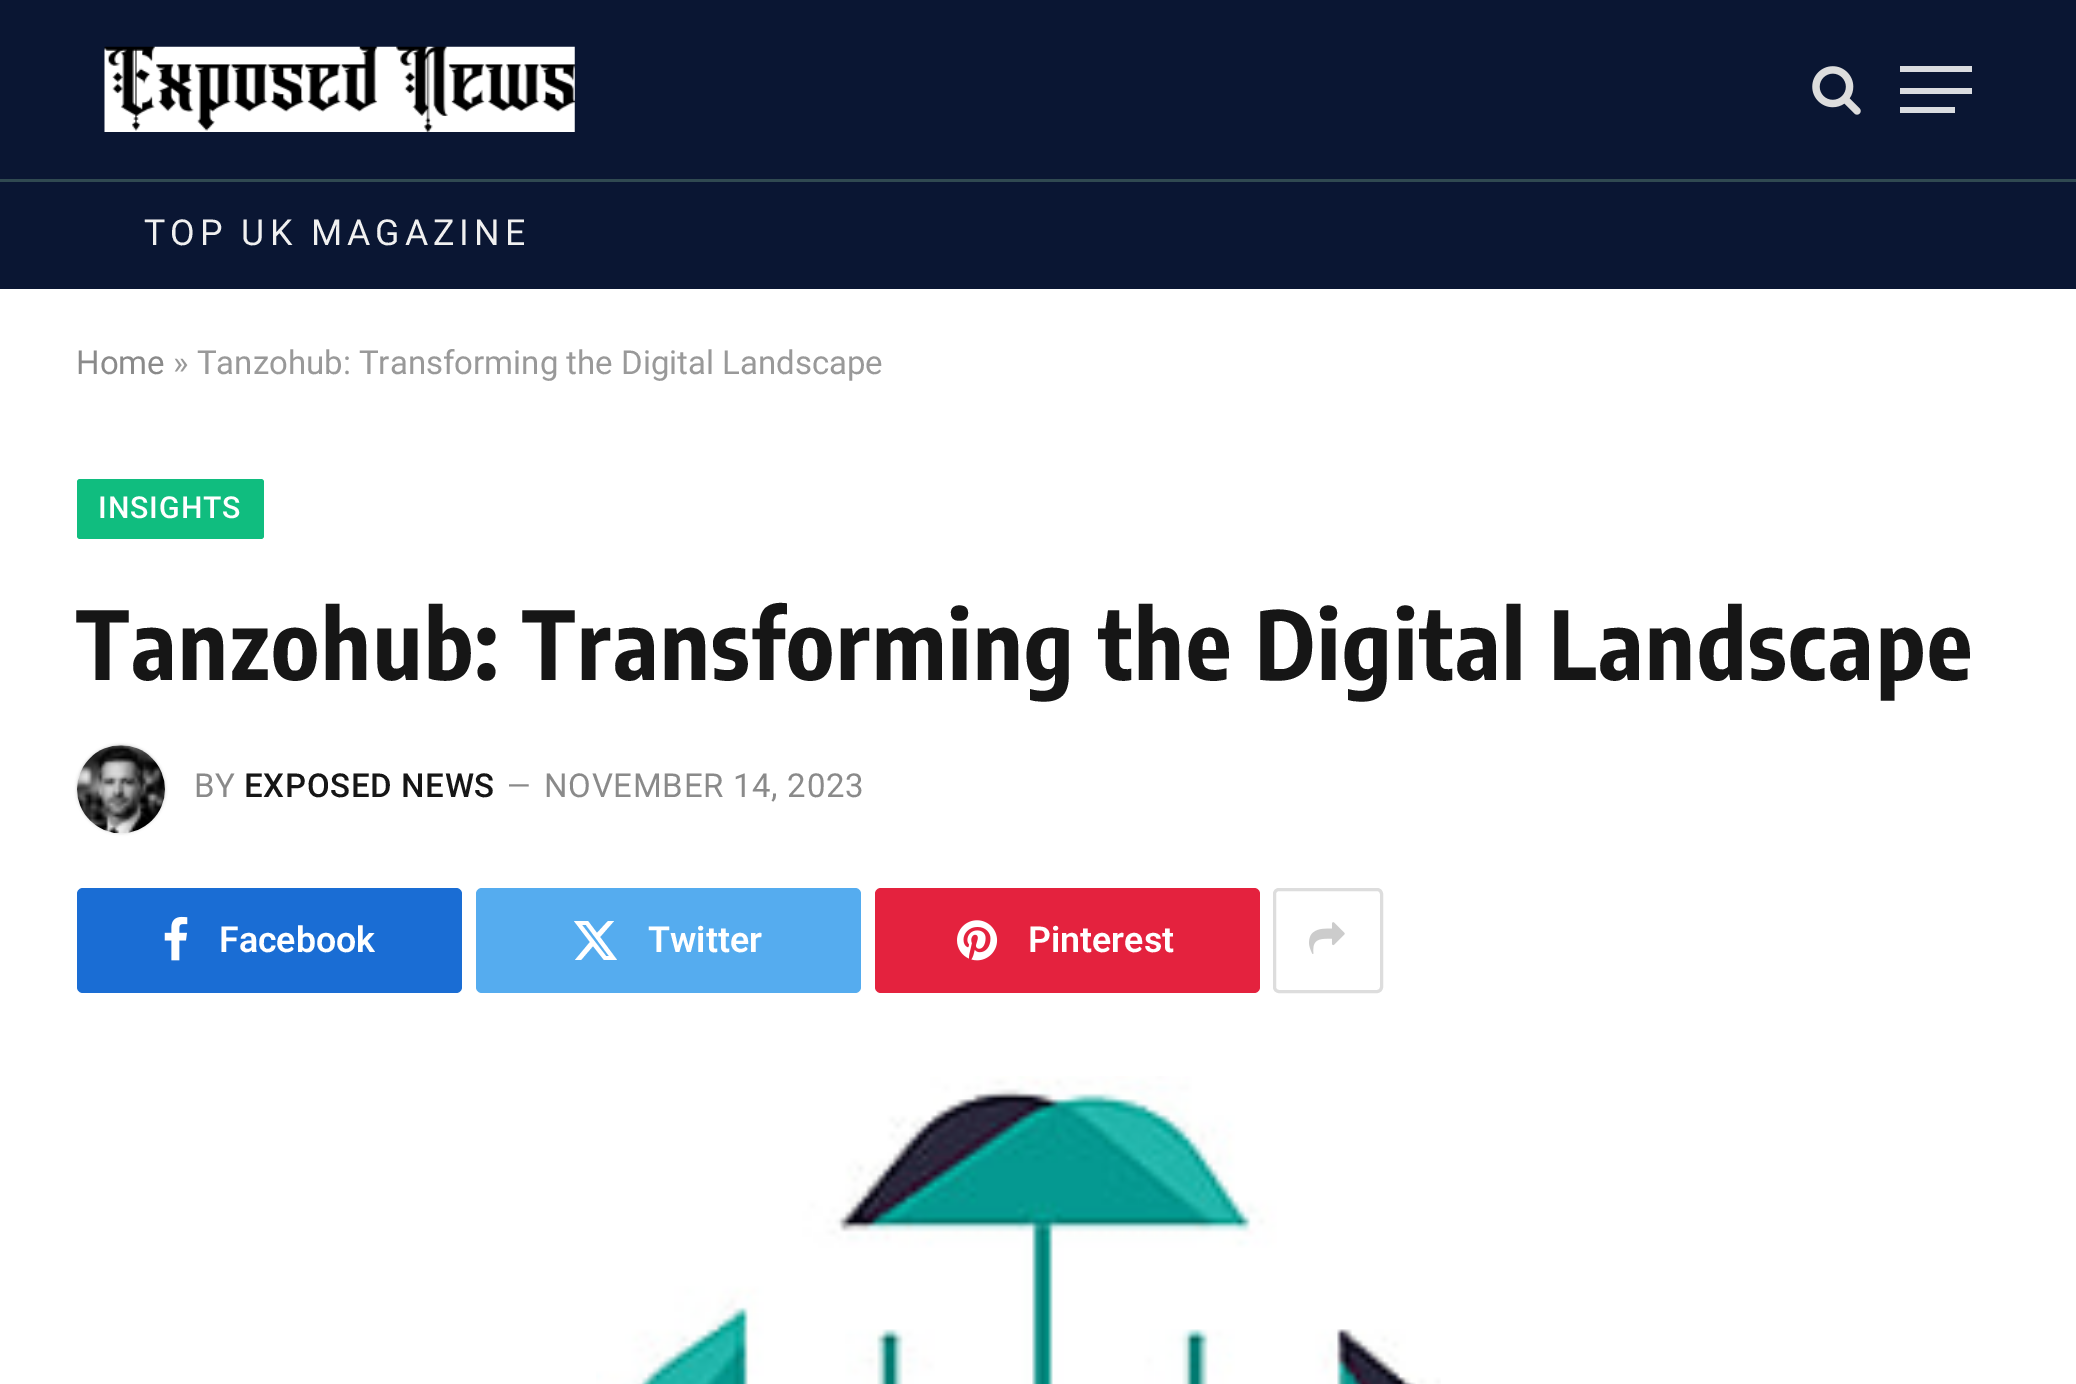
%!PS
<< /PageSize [2076 1384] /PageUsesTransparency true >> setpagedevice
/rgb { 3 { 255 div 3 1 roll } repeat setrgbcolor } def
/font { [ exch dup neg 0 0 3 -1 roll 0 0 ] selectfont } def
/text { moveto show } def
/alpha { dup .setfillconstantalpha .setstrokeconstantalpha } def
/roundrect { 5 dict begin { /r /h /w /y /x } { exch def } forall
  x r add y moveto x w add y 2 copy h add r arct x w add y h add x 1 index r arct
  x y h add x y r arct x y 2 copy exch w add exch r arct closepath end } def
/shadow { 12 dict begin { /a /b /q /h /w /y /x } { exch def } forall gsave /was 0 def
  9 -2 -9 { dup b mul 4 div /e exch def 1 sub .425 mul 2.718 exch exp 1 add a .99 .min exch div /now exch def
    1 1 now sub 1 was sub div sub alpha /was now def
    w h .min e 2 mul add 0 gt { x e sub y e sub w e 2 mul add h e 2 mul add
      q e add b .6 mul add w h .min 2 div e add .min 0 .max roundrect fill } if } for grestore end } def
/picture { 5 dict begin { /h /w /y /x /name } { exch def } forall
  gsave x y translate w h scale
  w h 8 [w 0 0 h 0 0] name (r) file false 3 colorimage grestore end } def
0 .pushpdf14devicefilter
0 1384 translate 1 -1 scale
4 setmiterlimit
255 255 255 rgb
0 0 2076 1384 rectfill
10 22 51 rgb
0 0 2076 179 rectfill
(img_01.rgb) 104 46 471 86 picture
(img_02.rgb) 1812 66 49 49 picture
218 220 224 rgb
1900 107 55 6 rectfill
1900 66 72 6 rectfill
1900 88 72 6 rectfill
10 22 51 rgb
0 182 2076 107 rectfill
48 73 81 rgb
0 179 2076 3 rectfill
16 189 127 rgb
77 479 187 60 3 roundrect fill
0 0 0 rgb
77 745 88 88 44 1.5 0.2 shadow
(img_03.rgb) 77 745 88 89 picture
26 109 212 rgb
77 888 385 105 6 roundrect fill
(img_04.rgb) 164 916 24 45 picture
85 172 239 rgb
476 888 385 105 6 roundrect fill
255 255 255 rgb
608 921 moveto 6 0 rlineto -14 16 rlineto 17 23 rlineto -13 0 rlineto -11 -14 rlineto -12 14 rlineto -6 0 rlineto 15 -18 rlineto -16 -21 rlineto 14 0 rlineto 9 12 rlineto closepath 606 956 moveto 3 0 rlineto -23 -31 rlineto -4 0 rlineto closepath fill
228 34 62 rgb
875 888 385 105 6 roundrect fill
(img_05.rgb) 957 920 41 41 picture
221 221 221 rgb
3 setlinewidth
1274.5 889.5 107 102 4.5 roundrect stroke
(img_06.rgb) 1309 922 36 32 picture
(img_07.rgb) 596 1076 845 308 picture
/Roboto-Regular 35.75 font
240 240 240 rgb
144 245 moveto 5 0 (TOP UK MAGAZINE) ashow
/Roboto-Regular 33 font
138 138 138 rgb
(Home) 76 374 text
153 153 153 rgb
(» Tanzohub: Transforming the Digital Landscape) 173 374 text
/Roboto-Medium 30.25 font
255 255 255 rgb
98 518 moveto 1 0 (INSIGHTS) ashow
/EncodeSansCondensed-Bold 94.4 font
22 22 22 rgb
76 680 moveto 1.9 0 (Tanzohub: Transforming the Digital Landscape) ashow
/Roboto-Regular 33 font
138 138 138 rgb
194 797 moveto 0.7 0 (BY) ashow
/Roboto-Medium 33 font
22 22 22 rgb
244 797 moveto 0.7 0 (EXPOSED NEWS) ashow
/Roboto-Regular 30 font
138 138 138 rgb
507 796 moveto 1 0 (—) ashow
/Roboto-Regular 33 font
544 797 moveto 0.7 0 (NOVEMBER 14, 2023) ashow
/Roboto-SemiBold 35.75 font
255 255 255 rgb
(Facebook) 219 952 text
(Twitter) 648 952 text
(Pinterest) 1028 952 text
.poppdf14devicefilter showpage
